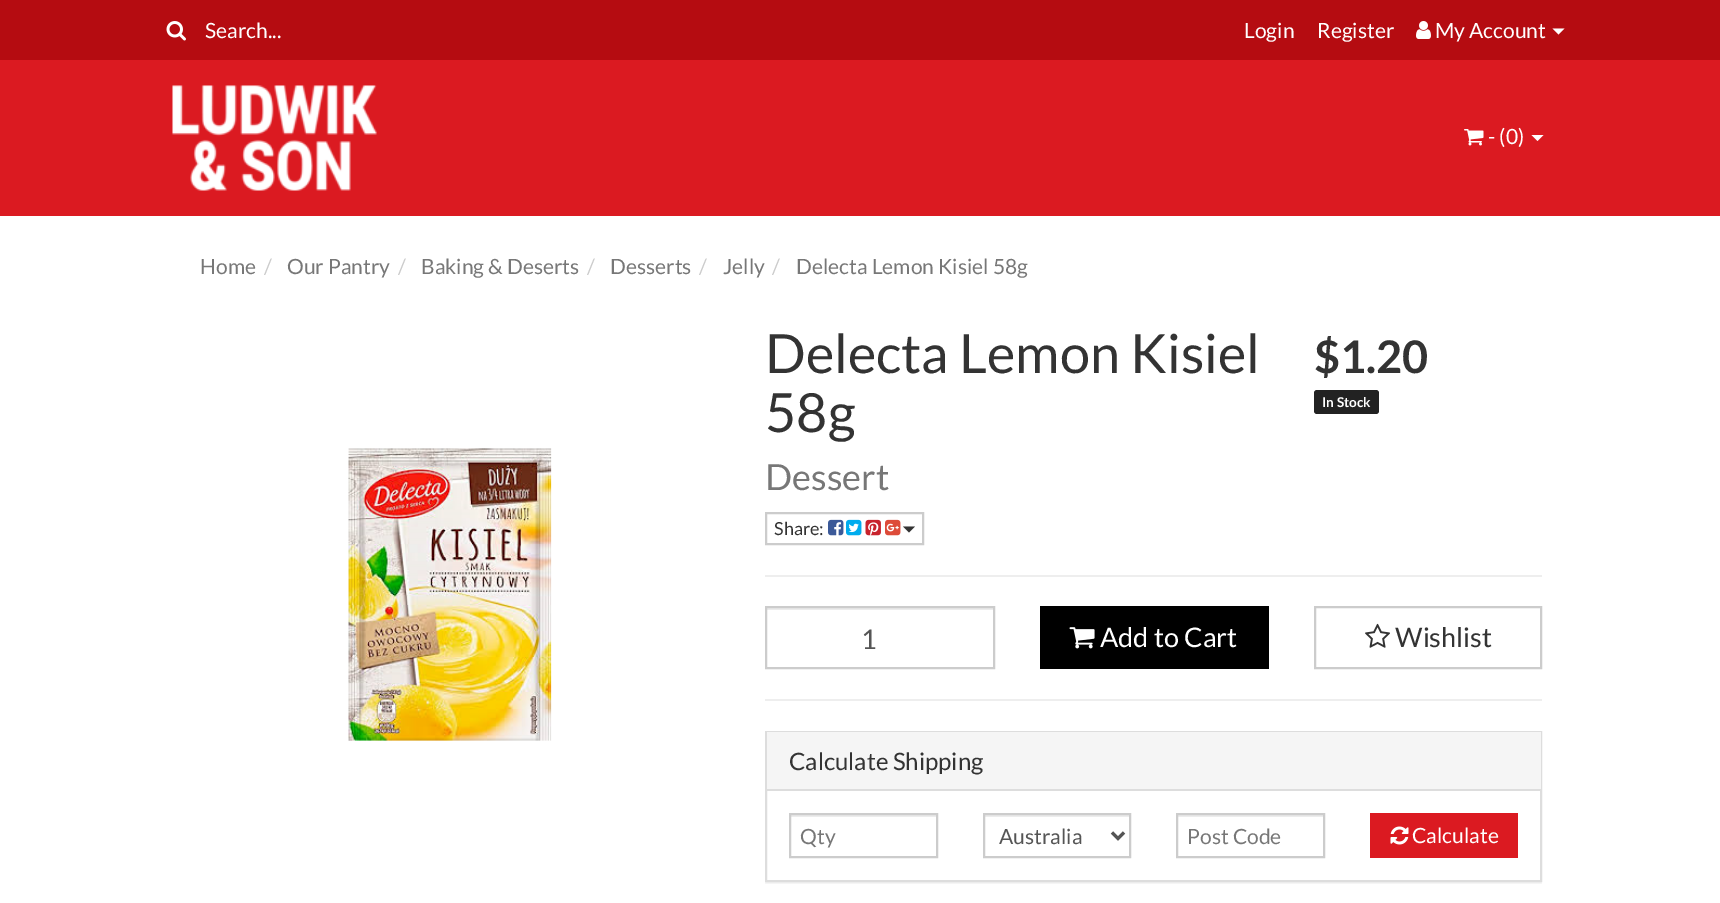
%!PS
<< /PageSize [1720 903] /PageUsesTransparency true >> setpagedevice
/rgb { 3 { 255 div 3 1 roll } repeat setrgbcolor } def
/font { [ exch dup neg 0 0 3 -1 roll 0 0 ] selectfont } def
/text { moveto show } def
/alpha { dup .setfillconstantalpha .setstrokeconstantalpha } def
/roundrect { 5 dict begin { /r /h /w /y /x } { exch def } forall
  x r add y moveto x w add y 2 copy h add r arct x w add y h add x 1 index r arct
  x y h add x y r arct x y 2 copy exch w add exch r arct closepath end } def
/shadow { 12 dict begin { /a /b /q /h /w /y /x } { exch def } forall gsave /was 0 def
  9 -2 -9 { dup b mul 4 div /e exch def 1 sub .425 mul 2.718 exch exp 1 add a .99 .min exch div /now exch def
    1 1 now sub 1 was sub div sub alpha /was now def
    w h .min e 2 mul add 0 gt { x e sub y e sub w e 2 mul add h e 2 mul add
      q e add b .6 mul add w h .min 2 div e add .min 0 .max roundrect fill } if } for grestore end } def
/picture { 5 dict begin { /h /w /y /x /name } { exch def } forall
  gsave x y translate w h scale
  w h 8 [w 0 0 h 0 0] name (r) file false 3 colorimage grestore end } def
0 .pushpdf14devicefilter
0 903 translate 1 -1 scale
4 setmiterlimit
255 255 255 rgb
0 0 1720 903 rectfill
181 12 17 rgb
0 0 1720 60 rectfill
(img_01.rgb) 166 21 20 20 picture
(img_02.rgb) 1416 21 15 18 picture
255 255 255 rgb
1552.5 28.5 moveto 12 0 rlineto -6 6 rlineto closepath fill
219 26 33 rgb
0 60 1720 156 rectfill
(img_03.rgb) 172 85 205 106 picture
(img_04.rgb) 1464 129 20 17 picture
255 255 255 rgb
1531.5 135 moveto 12 0 rlineto -6 6 rlineto closepath fill
(img_05.rgb) 348 448 204 293 picture
204 204 204 rgb
2 setlinewidth
766 513 157 31 rectstroke
(img_06.rgb) 828 519 16 17 picture
(img_07.rgb) 846 519 16 17 picture
(img_08.rgb) 865 519 16 17 picture
(img_09.rgb) 885 519 16 17 picture
51 51 51 rgb
903 526.5 moveto 12 0 rlineto -6 6 rlineto closepath fill
34 34 34 rgb
1314 390 65 24 3 roundrect fill
238 238 238 rgb
765 575 777 2 rectfill
236 236 236 rgb
767 608 226 2 rectfill
204 204 204 rgb
766 607 228 61 rectstroke
0 0 0 rgb
1040 606 229 63 rectfill
(img_10.rgb) 1069 627 26 22 picture
204 204 204 rgb
1315 607 226 61 rectstroke
(img_11.rgb) 1365 623 25 25 picture
238 238 238 rgb
765 699 777 2 rectfill
gsave
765 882 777 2 rectclip
0 0 0 rgb
765 732 777 152 0 1 0.05 shadow
grestore
221 221 221 rgb
766 732 775 149 rectstroke
245 245 245 rgb
767 732 774 57 rectfill
221 221 221 rgb
767 789 774 2 rectfill
236 236 236 rgb
791 815 145 2 rectfill
204 204 204 rgb
790 814 147 43 rectstroke
236 236 236 rgb
984 815 146 2 rectfill
204 204 204 rgb
984 814 146 43 rectstroke
85 85 85 rgb
3 setlinewidth
1112 832.5 moveto 6 6 rlineto 6 -6 rlineto stroke
236 236 236 rgb
1178 815 145 2 rectfill
204 204 204 rgb
2 setlinewidth
1177 814 147 43 rectstroke
219 26 33 rgb
1370 813 148 45 rectfill
(img_12.rgb) 1390 826 19 19 picture
/Lato-Regular 21 font
255 255 255 rgb
(Search...) 205 38 text
(Login) 1244 38 text
(Register) 1317 38 text
(My Account) 1435 38 text
(- \(0\)) 1488 144 text
119 119 119 rgb
(Home) 200 274 text
204 204 204 rgb
(/) 264 274 text
119 119 119 rgb
(Our Pantry) 287 274 text
204 204 204 rgb
(/) 398 274 text
119 119 119 rgb
(Baking & Deserts) 421 274 text
204 204 204 rgb
(/) 587 274 text
119 119 119 rgb
(Desserts) 610 274 text
204 204 204 rgb
(/) 699 274 text
119 119 119 rgb
(Jelly) 723 274 text
204 204 204 rgb
(/) 772 274 text
119 119 119 rgb
(Delecta Lemon Kisiel 58g) 796 274 text
/Lato-Regular 54 font
51 51 51 rgb
(Delecta Lemon Kisiel) 765 373 text
(58g) 765 432 text
/Lato-Regular 36 font
119 119 119 rgb
(Dessert) 765 490 text
/Lato-Regular 18 font
51 51 51 rgb
(Share:) 774 535 text
/Lato-Bold 45 font
($1.20) 1314 373 text
/Lato-Bold 13.5 font
255 255 255 rgb
(In Stock) 1322 407 text
/Lato-Regular 27 font
85 85 85 rgb
(1) 861 649 text
255 255 255 rgb
(Add to Cart) 1100 647 text
51 51 51 rgb
(Wishlist) 1395 647 text
/Lato-Regular 24 font
(Calculate Shipping) 789 770 text
/Lato-Regular 21 font
119 119 119 rgb
(Qty) 800 844 text
85 85 85 rgb
(Australia) 999 844 text
119 119 119 rgb
(Post Code) 1187 844 text
255 255 255 rgb
(Calculate) 1412 843 text
.poppdf14devicefilter showpage
